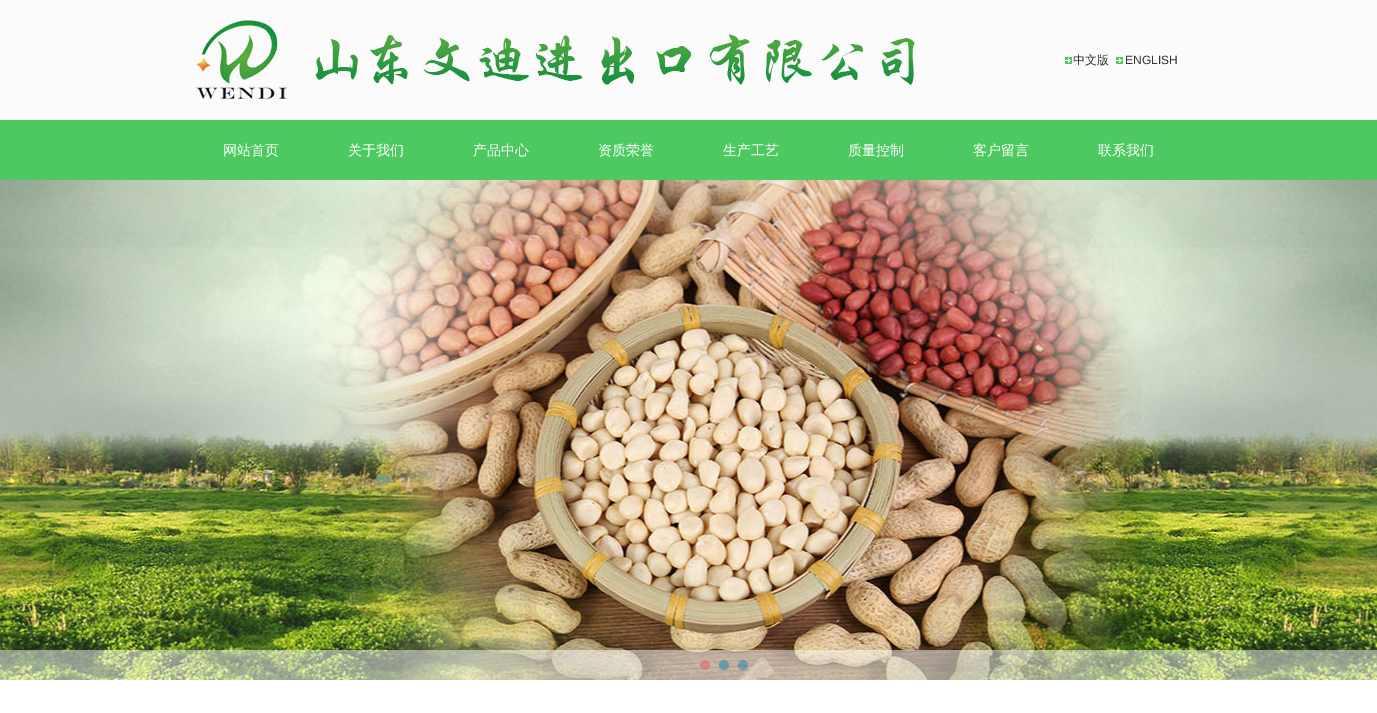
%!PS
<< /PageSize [1377 713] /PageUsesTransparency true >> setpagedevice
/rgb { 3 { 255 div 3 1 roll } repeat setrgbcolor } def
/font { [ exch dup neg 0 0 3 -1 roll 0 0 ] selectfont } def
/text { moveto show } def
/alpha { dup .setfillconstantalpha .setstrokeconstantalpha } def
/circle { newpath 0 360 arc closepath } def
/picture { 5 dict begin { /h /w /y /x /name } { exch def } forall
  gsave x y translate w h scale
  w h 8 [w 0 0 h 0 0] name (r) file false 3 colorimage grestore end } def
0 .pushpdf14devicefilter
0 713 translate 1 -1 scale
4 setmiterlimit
255 255 255 rgb
0 0 1377 713 rectfill
251 251 251 rgb
0 0 1377 120 rectfill
(img_01.rgb) 195 16 722 88 picture
(img_02.rgb) 1065 57 7 7 picture
(img_02.rgb) 1116 57 7 7 picture
78 201 97 rgb
0 120 1377 60 rectfill
(img_03.rgb) 0 180 1377 500 picture
0.5 alpha
255 255 255 rgb
0 650 1377 30 rectfill
225 94 96 rgb
705 665 5 circle fill
25 136 169 rgb
724 665 5 circle fill
743 665 5 circle fill
/WenQuanYiZenHei-Medium 12 font
1 alpha
51 51 51 rgb
(中文版) 1073 64 text
/LiberationSans-Regular 12 font
(ENGLISH) 1125 64 text
/WenQuanYiZenHei-Medium 14 font
255 255 255 rgb
(网站首页) 223 155 text
(关于我们) 348 155 text
(产品中心) 473 155 text
(资质荣誉) 598 155 text
(生产工艺) 723 155 text
(质量控制) 848 155 text
(客户留言) 973 155 text
(联系我们) 1098 155 text
.poppdf14devicefilter showpage
